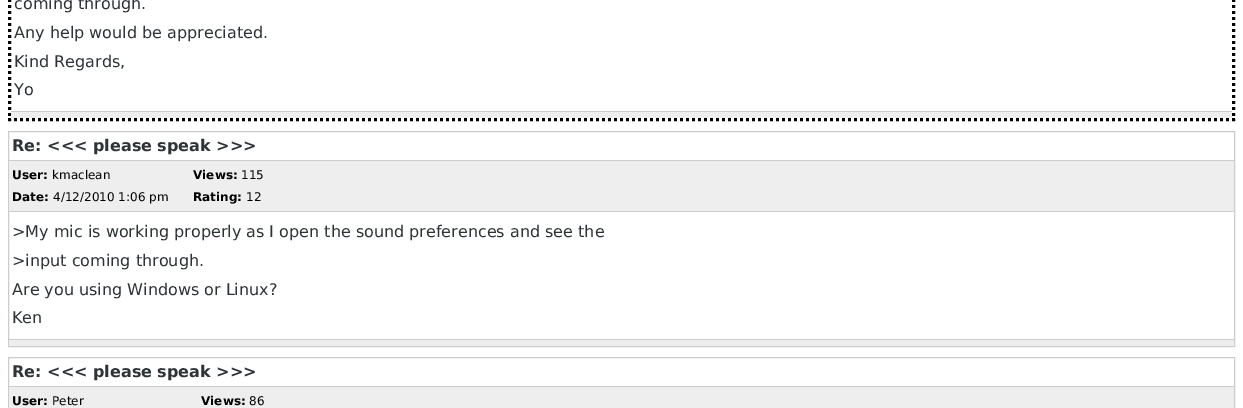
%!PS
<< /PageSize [1243 408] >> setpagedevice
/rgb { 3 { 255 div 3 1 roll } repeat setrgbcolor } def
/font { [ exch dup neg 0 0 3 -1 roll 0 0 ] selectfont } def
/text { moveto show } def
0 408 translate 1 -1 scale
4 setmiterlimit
255 255 255 rgb
0 0 1243 408 rectfill
0 0 0 rgb
3 setlinewidth
[3 3] 0 setdash
1233.5 -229 moveto 0 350 rlineto stroke
8 119.5 moveto 1227 0 rlineto stroke
9.5 -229 moveto 0 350 rlineto stroke
238 238 238 rgb
11 112 1221 6 rectfill
204 204 204 rgb
11 111 1221 1 rectfill
1 setlinewidth
[] 0 setdash
8.5 131.5 1226 215 rectstroke
9 160 1225 1 rectfill
238 238 238 rgb
9 161 1225 50 rectfill
204 204 204 rgb
9 211 1225 1 rectfill
238 238 238 rgb
9 340 1225 6 rectfill
204 204 204 rgb
9 339 1225 1 rectfill
8.5 357.5 1226 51 rectstroke
9 386 1225 1 rectfill
238 238 238 rgb
9 387 1225 21 rectfill
/DejaVuSans-Regular 16 font
46 52 54 rgb
(coming through.) 14 9 text
(Any help would be appreciated.) 14 38 text
(Kind Regards,) 14 67 text
(Yo) 14 95 text
/DejaVuSans-Bold 16 font
(Re: <<< please speak >>>) 12 151 text
/DejaVuSans-Bold 12 font
0 0 0 rgb
(User:) 12 179 text
/DejaVuSans-Regular 12 font
(kmaclean) 52 179 text
/DejaVuSans-Bold 12 font
(Date:) 12 201 text
/DejaVuSans-Regular 12 font
(4/12/2010 1:06 pm) 53 201 text
/DejaVuSans-Bold 12 font
(Views:) 193 179 text
/DejaVuSans-Regular 12 font
(115) 241 179 text
/DejaVuSans-Bold 12 font
(Rating:) 193 201 text
/DejaVuSans-Regular 12 font
(12) 246 201 text
/DejaVuSans-Regular 16 font
46 52 54 rgb
(>My mic is working properly as I open the sound preferences and see the) 12 237 text
(>input coming through.) 12 266 text
(Are you using Windows or Linux?) 12 295 text
(Ken) 12 323 text
/DejaVuSans-Bold 16 font
(Re: <<< please speak >>>) 12 377 text
/DejaVuSans-Bold 12 font
0 0 0 rgb
(User:) 12 405 text
/DejaVuSans-Regular 12 font
(Peter) 52 405 text
/DejaVuSans-Bold 12 font
(Views:) 201 405 text
/DejaVuSans-Regular 12 font
(86) 249 405 text
showpage
